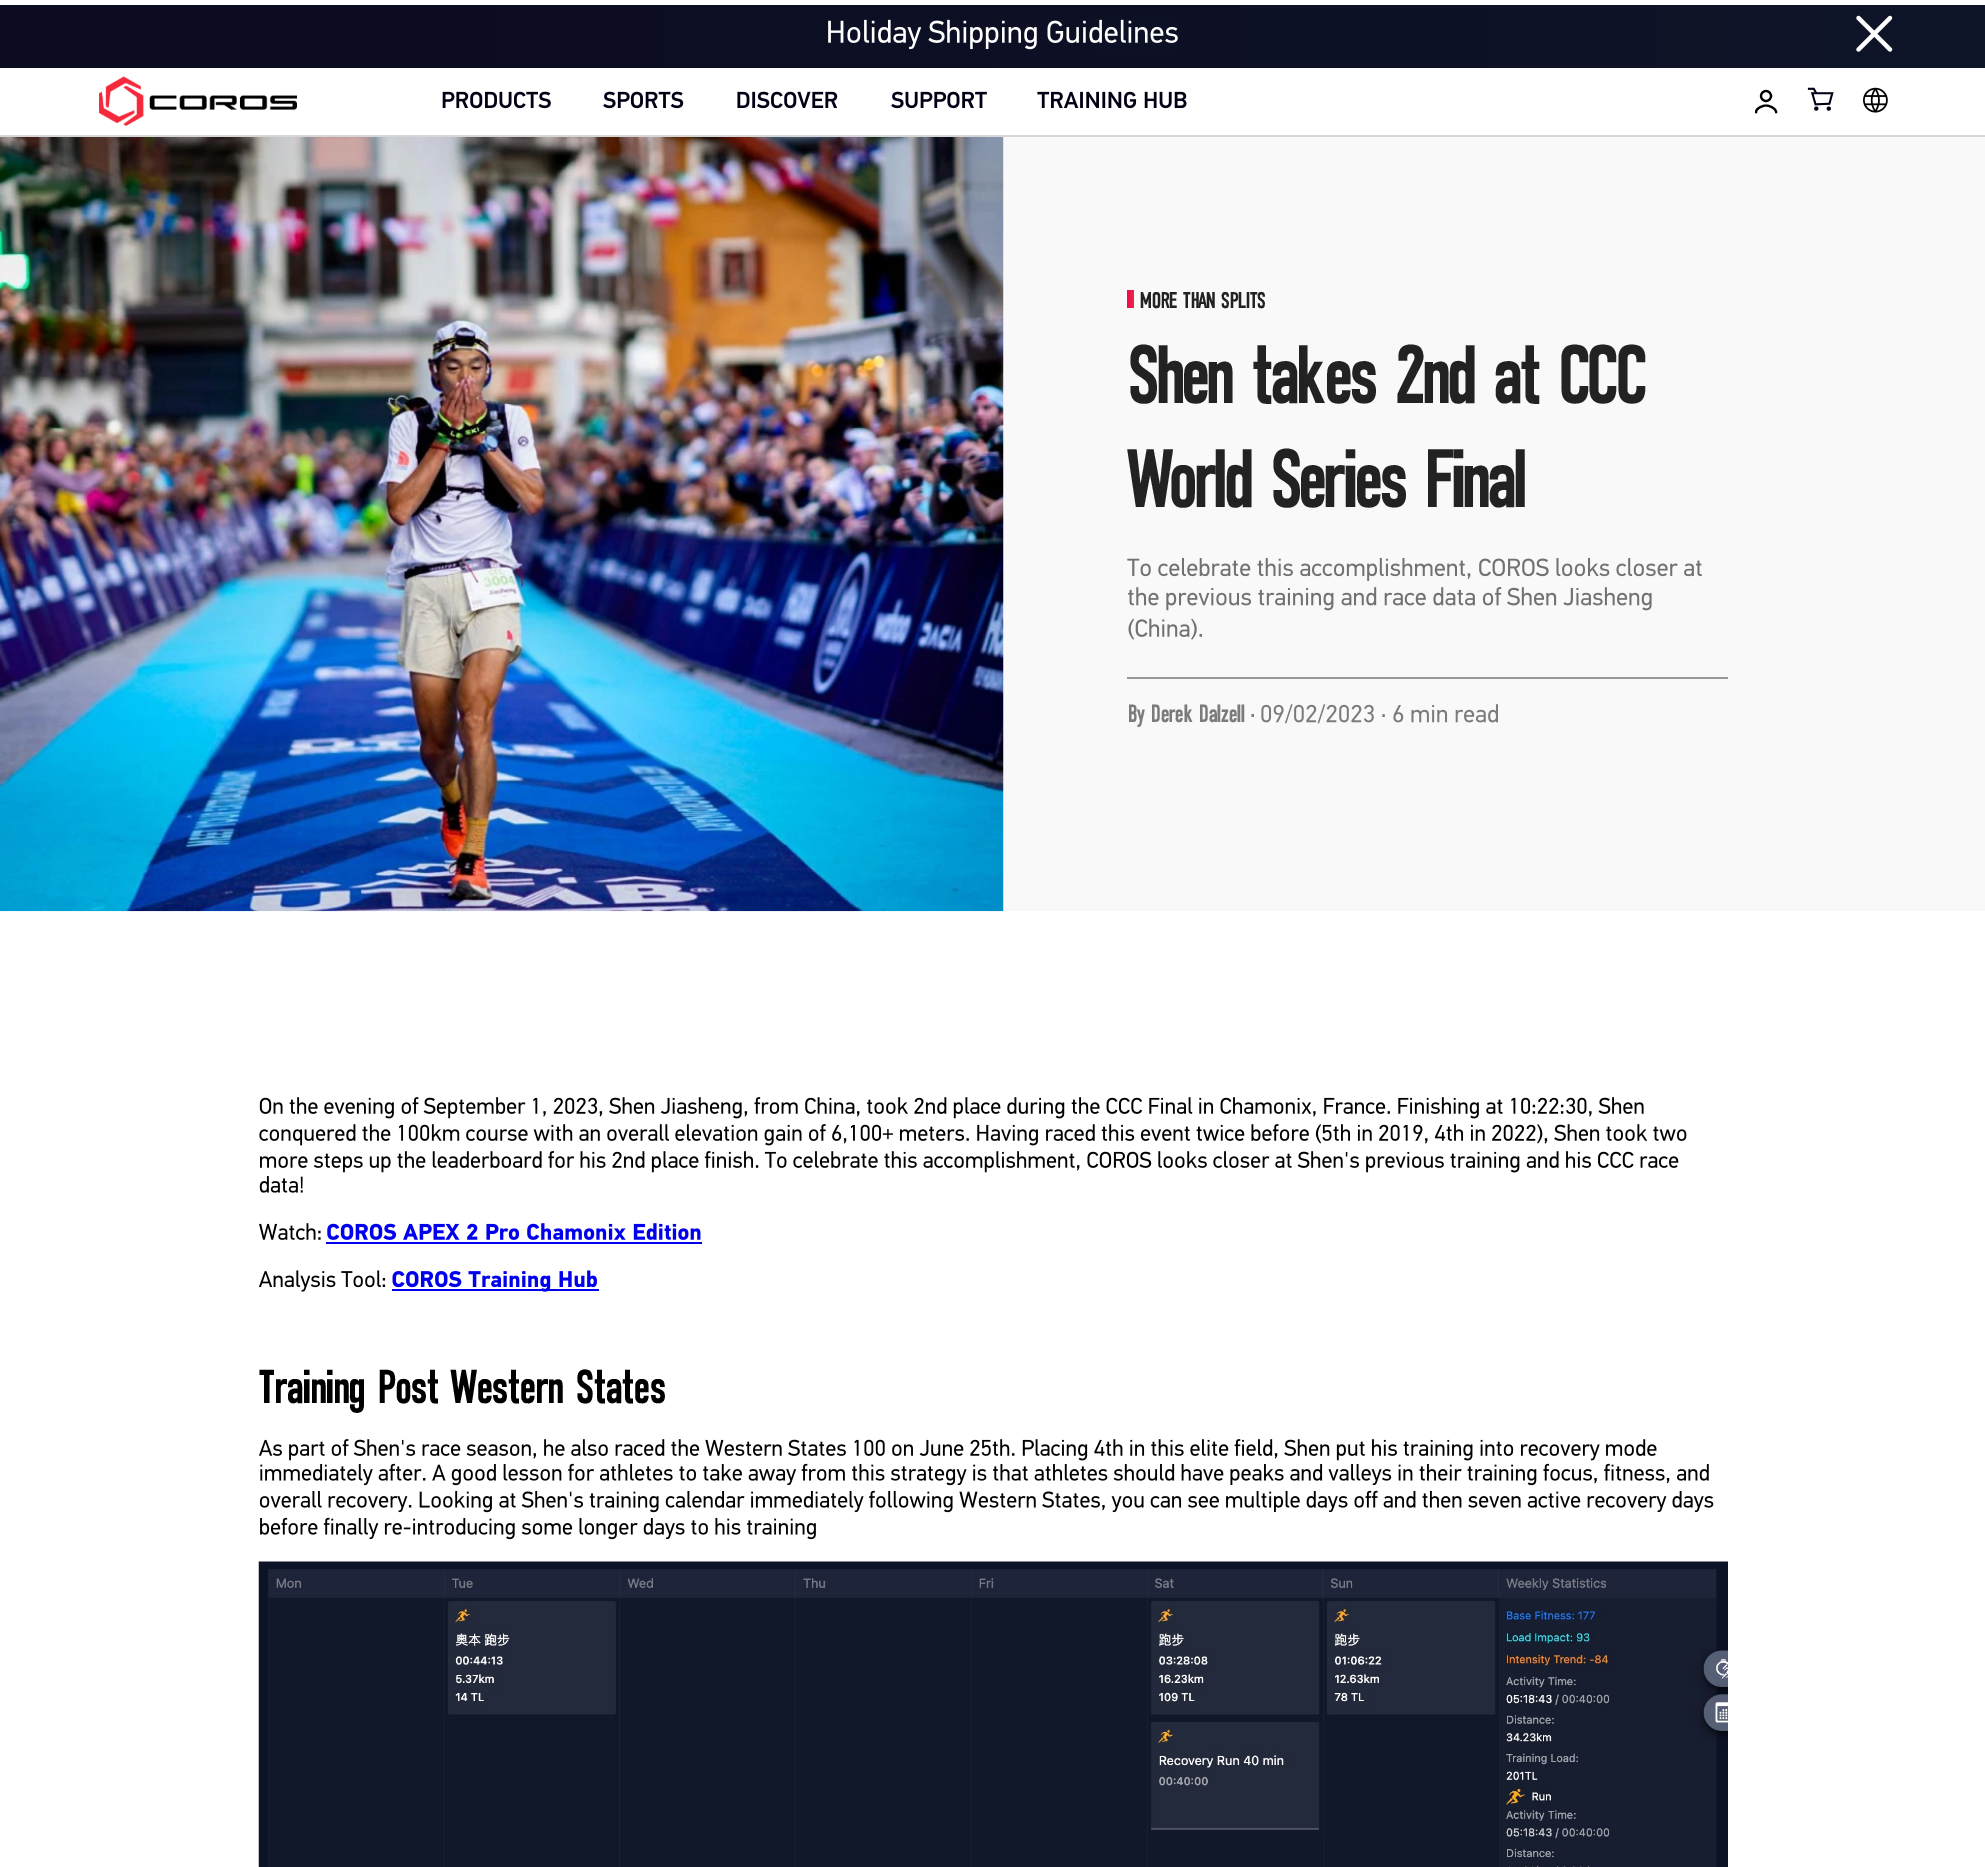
%!PS
<< /PageSize [1985 1867] >> setpagedevice
/rgb { 3 { 255 div 3 1 roll } repeat setrgbcolor } def
/font { [ exch dup neg 0 0 3 -1 roll 0 0 ] selectfont } def
/text { moveto show } def
/circle { newpath 0 360 arc closepath } def
/picture { 5 dict begin { /h /w /y /x /name } { exch def } forall
  gsave x y translate w h scale
  w h 8 [w 0 0 h 0 0] name (r) file false 3 colorimage grestore end } def
0 1867 translate 1 -1 scale
4 setmiterlimit
255 255 255 rgb
0 0 1985 1867 rectfill
214 214 214 rgb
0 135 1985 2 rectfill
gsave 0 5 moveto 1985 0 rlineto 0 63 rlineto -1985 0 rlineto closepath clip newpath
<< /ShadingType 2 /ColorSpace /DeviceRGB /Coords [0 34 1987 34] /Extend [true true] /Function << /FunctionType 2 /Domain [0 1] /C0 [0.043 0.043 0.129] /C1 [0.059 0.082 0.157] /N 1 >> >> shfill grestore
(img_01.rgb) 828 19 350 31 picture
(img_02.rgb) 1856 15 37 37 picture
(img_03.rgb) 99 76 198 50 picture
(img_04.rgb) 442 91 109 18 picture
(img_05.rgb) 603 91 81 18 picture
(img_06.rgb) 737 91 101 18 picture
(img_07.rgb) 891 91 96 18 picture
(img_08.rgb) 1037 91 150 18 picture
0 0 0 rgb
2.1 setlinewidth
2 setlinecap
1776 112 moveto 0 -4 -7 -6.5 -10 -6.5 rcurveto -3 0 -10 2.5 -10 6.5 rcurveto stroke
0 setlinecap
1766 96 5 circle stroke
(img_09.rgb) 1807 87 27 24 picture
(img_10.rgb) 1863 87 25 26 picture
(img_11.rgb) 0 137 1004 775 picture
249 249 249 rgb
1004 137 981 774 rectfill
gsave 1127 290 moveto 7 0 rlineto 0 18 rlineto -7 0 rlineto closepath clip newpath
<< /ShadingType 2 /ColorSpace /DeviceRGB /Coords [1127 299 1134 299] /Extend [true true] /Function << /FunctionType 3 /Domain [0 1] /Functions [<< /FunctionType 2 /Domain [0 1] /C0 [0.969 0.016 0.353] /C1 [0.969 0.016 0.353] /N 1 >> << /FunctionType 2 /Domain [0 1] /C0 [0.969 0.016 0.353] /C1 [0.902 0.18 0.231] /N 1 >> << /FunctionType 2 /Domain [0 1] /C0 [0.902 0.18 0.231] /C1 [0.902 0.18 0.231] /N 1 >>] /Bounds [0.05 0.97] /Encode [0 1 0 1 0 1] >> >> shfill grestore
(img_12.rgb) 1127 558 575 23 picture
(img_13.rgb) 1128 587 524 24 picture
(img_14.rgb) 1128 618 75 22 picture
151 151 151 rgb
1127 677 601 2 rectfill
123 123 123 rgb
1254 717 moveto -2.5 0 rlineto 0 -3 rlineto 2.5 0 rlineto closepath fill
(img_15.rgb) 1261 704 237 20 picture
(img_16.rgb) 259 1097 1385 22 picture
(img_17.rgb) 259 1124 1428 22 picture
(img_18.rgb) 260 1151 1419 22 picture
(img_19.rgb) 259 1176 44 17 picture
(img_20.rgb) 259 1223 62 17 picture
(img_21.rgb) 327 1223 374 17 picture
0 0 238 rgb
326 1242 376 2 rectfill
(img_22.rgb) 259 1270 127 22 picture
392 1289 207 2 rectfill
(img_23.rgb) 392 1270 205 22 picture
(img_24.rgb) 259 1439 1398 22 picture
(img_25.rgb) 260 1463 1449 23 picture
(img_26.rgb) 259 1490 1455 23 picture
(img_27.rgb) 260 1517 556 23 picture
(img_28.rgb) 258 1561 1470 306 picture
/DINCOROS-Bold 22.75 font
34 34 34 rgb
(MORE THAN SPLITS) 1140 308 text
/DINCOROS-Bold 82.75 font
1128 403 moveto -2.1 0 (Shen takes 2nd at CCC) ashow
1128 507 moveto -2.1 0 (World Series Final) ashow
/DINCOROS-Bold 25 font
123 123 123 rgb
(By Derek Dalzell) 1128 722 text
/DINCOROS-Bold 47.5 font
0 0 0 rgb
(Training Post Western States) 259 1403 text
showpage
